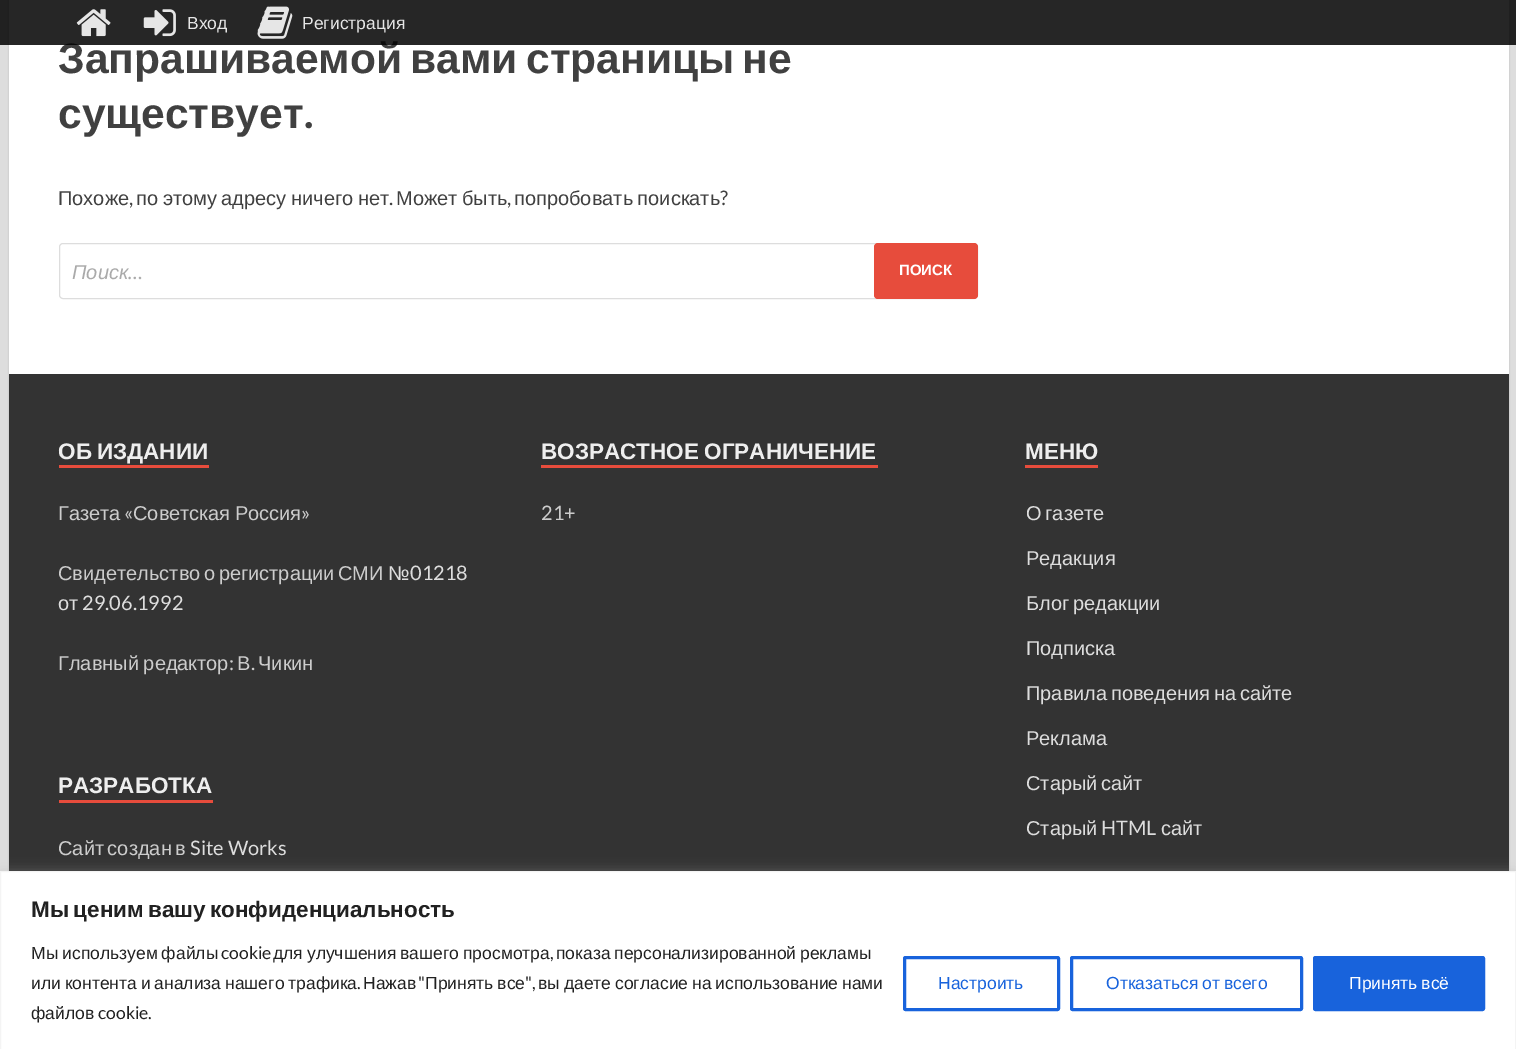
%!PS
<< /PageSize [1516 1049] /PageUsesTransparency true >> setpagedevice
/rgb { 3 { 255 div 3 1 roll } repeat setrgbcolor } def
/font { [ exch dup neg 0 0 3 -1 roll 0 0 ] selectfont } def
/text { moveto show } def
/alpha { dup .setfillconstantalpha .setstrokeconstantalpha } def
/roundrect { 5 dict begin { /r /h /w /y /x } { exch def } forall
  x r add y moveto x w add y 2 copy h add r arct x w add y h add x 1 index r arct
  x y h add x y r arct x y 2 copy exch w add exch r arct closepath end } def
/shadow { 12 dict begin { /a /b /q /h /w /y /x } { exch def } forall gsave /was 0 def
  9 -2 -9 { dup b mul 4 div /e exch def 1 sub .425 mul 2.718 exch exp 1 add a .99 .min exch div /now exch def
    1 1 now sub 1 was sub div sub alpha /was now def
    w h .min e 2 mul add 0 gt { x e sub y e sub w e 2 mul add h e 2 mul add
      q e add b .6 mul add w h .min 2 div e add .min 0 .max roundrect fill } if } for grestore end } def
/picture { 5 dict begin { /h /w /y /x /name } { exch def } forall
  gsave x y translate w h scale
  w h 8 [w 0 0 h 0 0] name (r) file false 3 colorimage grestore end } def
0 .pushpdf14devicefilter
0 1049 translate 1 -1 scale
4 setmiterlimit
221 221 221 rgb
0 0 1516 1049 rectfill
187 187 187 rgb
9 -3 1500 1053 0 1 1 shadow
255 255 255 rgb
9 0 1500 374 rectfill
221 221 221 rgb
59.5 243.5 918 55 3.5 roundrect stroke
231 76 60 rgb
874 243 104 56 4 roundrect fill
51 51 51 rgb
9 374 1500 497 rectfill
231 76 60 rgb
59 465 150 3 rectfill
59 800 154 3 rectfill
541 465 337 3 rectfill
1025 465 73 3 rectfill
172 171 171 rgb
0 870 1516 179 0 6 0.3 shadow
255 255 255 rgb
0.5 871.5 moveto 1515 0 rlineto 0 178 rlineto -1515 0 rlineto closepath gsave fill grestore
244 244 244 rgb
stroke
24 99 220 rgb
3 setlinewidth
904.5 957.5 154 52 1 roundrect stroke
1071.5 957.5 230 52 1 roundrect stroke
1314.5 957.5 169 52 1 roundrect gsave fill grestore
stroke
/LiberationSans-Bold 42.5 font
64 64 64 rgb
58 73 moveto -3.5 0 32 (Запрашиваемой вами страницы не) widthshow
0.85 alpha
0 0 0 rgb
0 0 1516 45 rectfill
/LiberationSans-Regular 17.5 font
1 alpha
230 230 230 rgb
(Регистрация) 302 29 text
(img_03.rgb) 257 6 36 33 picture
(Вход) 187 29 text
(img_02.rgb) 143 9 33 28 picture
(img_01.rgb) 76 9 35 28 picture
/LiberationSans-Bold 42.5 font
64 64 64 rgb
(существует) 58 128 text
/Lato-Bold 42.5 font
(.) 304 128 text
/LiberationSans-Regular 20 font
(Похоже) 58 205 text
/Lato-Regular 20 font
(,) 129 205 text
/LiberationSans-Regular 20 font
136 205 moveto -1 0 32 (по этому адресу ничего нет) widthshow
/Lato-Regular 20 font
(.) 389 205 text
/LiberationSans-Regular 20 font
396 205 moveto -1 0 32 (Может быть) widthshow
/Lato-Regular 20 font
(,) 507 205 text
/LiberationSans-Regular 20 font
514 205 moveto -1 0 32 (попробовать поискать) widthshow
/Lato-Regular 20 font
(?) 720 205 text
/LiberationSans-Italic 20 font
170 170 170 rgb
(Поиск) 72 279 text
/Lato-Italic 20 font
(…) 128 279 text
/LiberationSans-Bold 15 font
255 255 255 rgb
(ПОИСК) 899 275 text
/LiberationSans-Bold 22.5 font
238 238 238 rgb
58 459 moveto -1 0 32 (ОБ ИЗДАНИИ) widthshow
/LiberationSans-Regular 20 font
204 204 204 rgb
(Газета) 58 520 text
/Lato-Regular 20 font
(«) 124 520 text
/LiberationSans-Regular 20 font
133 520 moveto -1 0 32 (Советская Россия) widthshow
/Lato-Regular 20 font
(») 301 520 text
/LiberationSans-Regular 20 font
58 580 moveto -2 0 32 (Свидетельство о регистрации СМИ) widthshow
221 221 221 rgb
(№) 388 580 text
/Lato-Regular 20 font
(01218) 410 580 text
/LiberationSans-Regular 20 font
(от) 58 610 text
/Lato-Regular 20 font
(29.06.1992) 82 610 text
/LiberationSans-Regular 20 font
204 204 204 rgb
58 670 moveto -1 0 32 (Главный редактор) widthshow
/Lato-Regular 20 font
(:) 229 670 text
/LiberationSans-Regular 20 font
(В) 237 670 text
/Lato-Regular 20 font
(.) 251 670 text
/LiberationSans-Regular 20 font
(Чикин) 258 670 text
/LiberationSans-Bold 22.5 font
238 238 238 rgb
(РАЗРАБОТКА) 58 793 text
/LiberationSans-Regular 20 font
204 204 204 rgb
58 855 moveto -2 0 32 (Сайт создан в) widthshow
/Lato-Regular 20 font
221 221 221 rgb
(Site Works) 190 855 text
/LiberationSans-Bold 22.5 font
238 238 238 rgb
541 459 moveto -1 0 32 (ВОЗРАСТНОЕ ОГРАНИЧЕНИЕ) widthshow
/Lato-Regular 20 font
204 204 204 rgb
(21+) 541 520 text
/LiberationSans-Bold 22.5 font
238 238 238 rgb
(МЕНЮ) 1025 459 text
/LiberationSans-Regular 20 font
221 221 221 rgb
1026 520 moveto -2 0 32 (О газете) widthshow
(Редакция) 1026 565 text
1026 610 moveto -2 0 32 (Блог редакции) widthshow
(Подписка) 1026 655 text
1026 700 moveto -2 0 32 (Правила поведения на сайте) widthshow
(Реклама) 1026 745 text
1026 790 moveto -2 0 32 (Старый сайт) widthshow
(Старый) 1026 835 text
/Lato-Regular 20 font
(HTML) 1101 835 text
/LiberationSans-Regular 20 font
(сайт) 1161 835 text
/LiberationSans-Bold 22.5 font
33 33 33 rgb
31 917 moveto -2 0 32 (Мы ценим вашу конфиденциальность) widthshow
/LiberationSans-Regular 17.5 font
31 959 moveto -1 0 32 (Мы используем файлы) widthshow
/Lato-Regular 17.5 font
(cookie) 221 959 text
/LiberationSans-Regular 17.5 font
273 959 moveto -1 0 32 (для улучшения вашего просмотра) widthshow
/Lato-Regular 17.5 font
(,) 550 959 text
/LiberationSans-Regular 17.5 font
556 959 moveto -1 0 32 (показа персонализированной рекламы) widthshow
31 989 moveto -1 0 32 (или контента и анализа нашего трафика) widthshow
/Lato-Regular 17.5 font
(.) 357 989 text
/LiberationSans-Regular 17.5 font
(Нажав) 363 989 text
/Lato-Regular 17.5 font
(") 418 989 text
/LiberationSans-Regular 17.5 font
425 989 moveto -1 0 32 (Принять все) widthshow
/Lato-Regular 17.5 font
(",) 525 989 text
/LiberationSans-Regular 17.5 font
538 989 moveto -1 0 32 (вы даете согласие на использование нами) widthshow
(файлов) 31 1019 text
/Lato-Regular 17.5 font
(cookie.) 98 1019 text
/LiberationSans-Regular 17.5 font
24 99 220 rgb
(Настроить) 938 989 text
1106 989 moveto -1 0 32 (Отказаться от всего) widthshow
255 255 255 rgb
1349 989 moveto -1 0 32 (Принять всё) widthshow
.poppdf14devicefilter showpage
